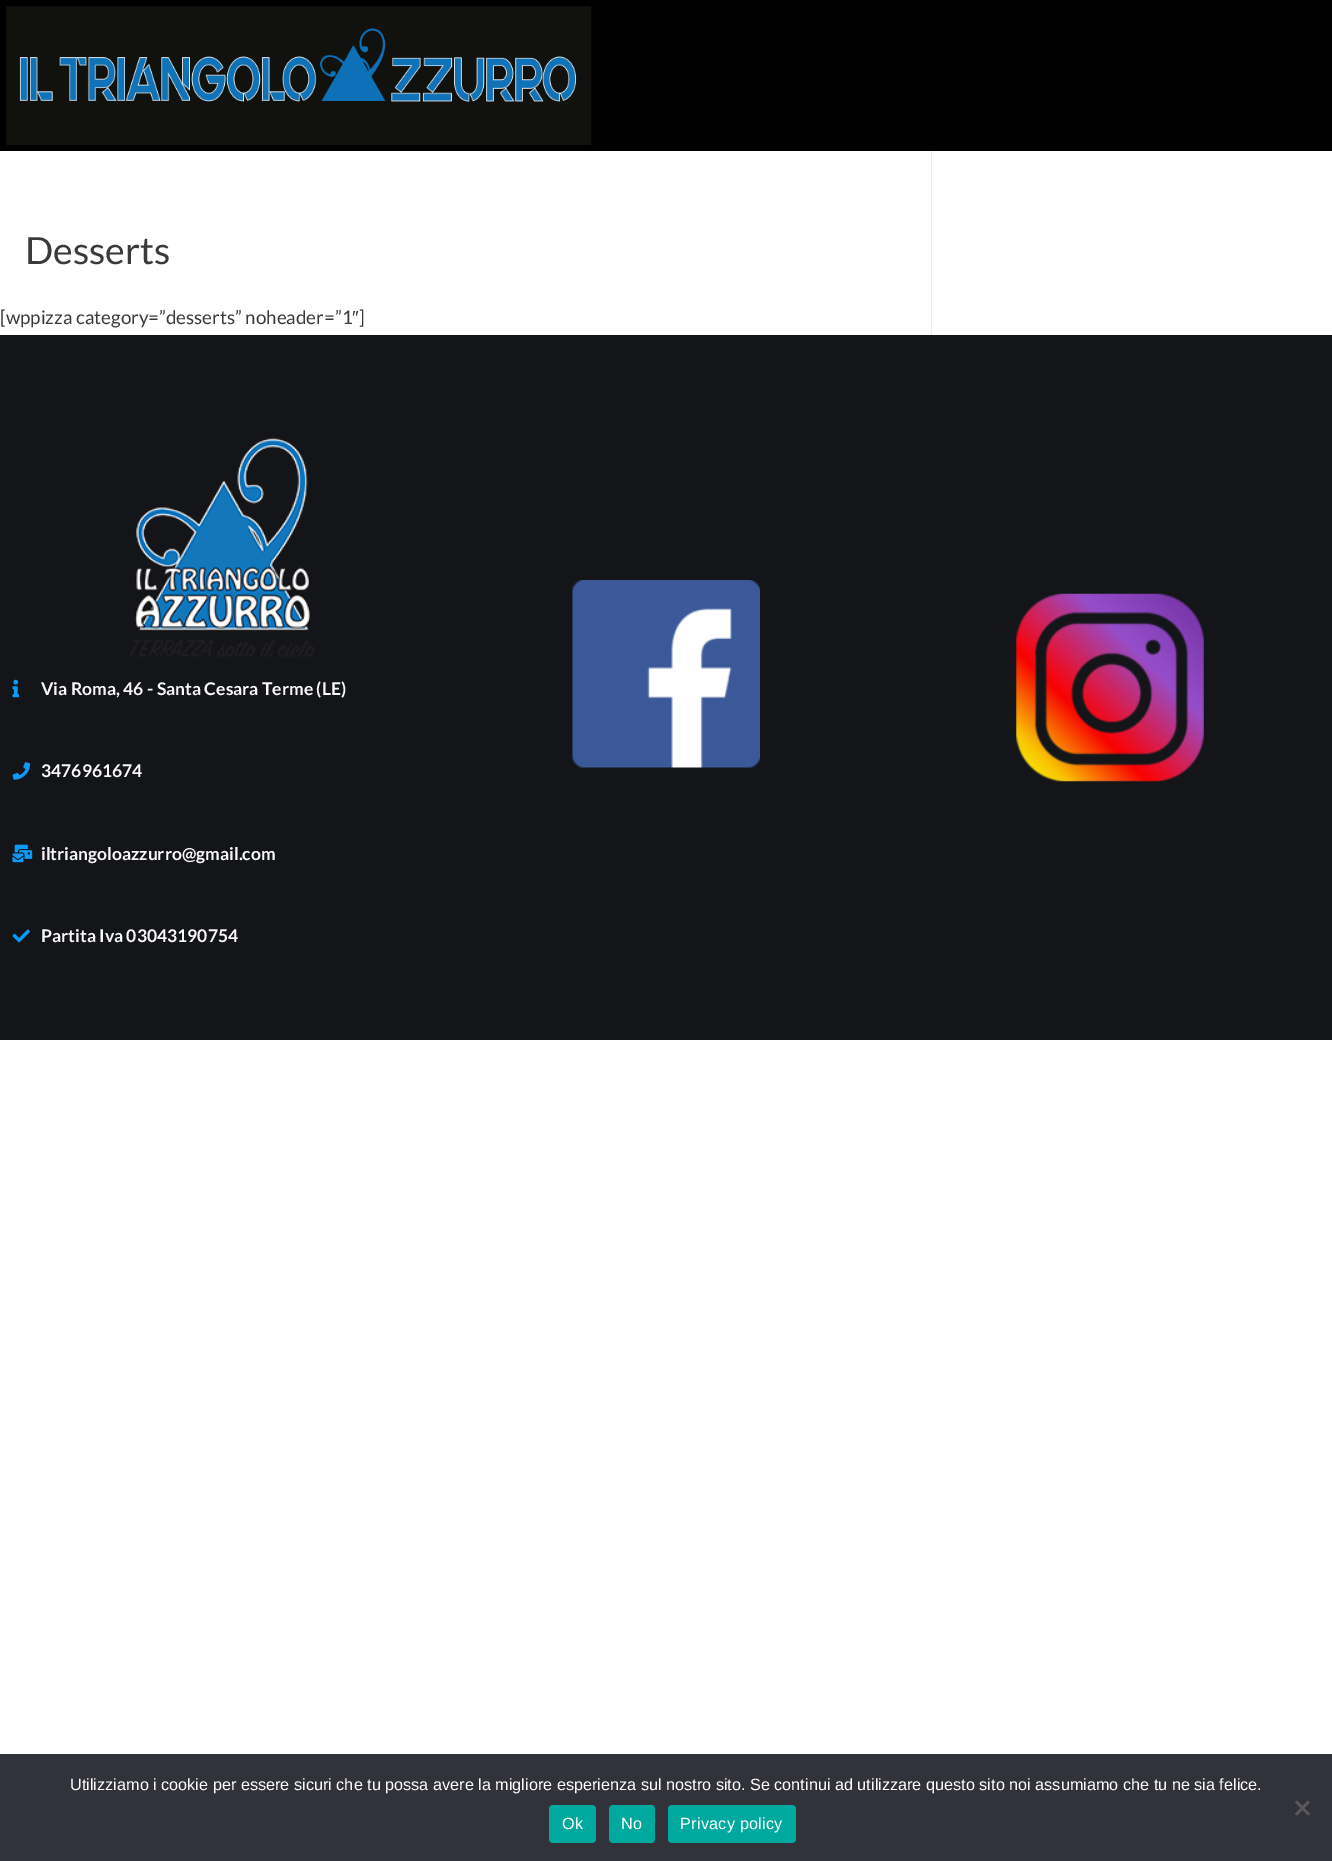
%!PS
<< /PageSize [1332 1861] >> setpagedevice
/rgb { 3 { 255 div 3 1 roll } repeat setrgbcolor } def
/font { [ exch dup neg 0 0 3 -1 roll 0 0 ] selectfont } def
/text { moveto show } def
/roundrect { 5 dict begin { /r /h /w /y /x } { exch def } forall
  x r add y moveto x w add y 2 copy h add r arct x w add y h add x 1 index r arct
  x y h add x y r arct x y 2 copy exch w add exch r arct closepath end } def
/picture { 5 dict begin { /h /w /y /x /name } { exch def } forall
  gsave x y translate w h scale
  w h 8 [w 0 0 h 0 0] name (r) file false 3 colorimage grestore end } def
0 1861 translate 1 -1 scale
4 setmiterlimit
255 255 255 rgb
0 0 1332 1861 rectfill
0 0 0 rgb
0 0 1332 151 rectfill
(img_01.rgb) 6 6 586 139 picture
238 238 238 rgb
931 151 1 184 rectfill
20 21 25 rgb
0 335 1332 705 rectfill
(img_02.rgb) 130 437 185 221 picture
(img_03.rgb) 12 679 8 19 picture
(img_04.rgb) 12 762 18 18 picture
(img_05.rgb) 12 844 21 19 picture
(img_06.rgb) 12 929 18 14 picture
(img_07.rgb) 572 580 188 188 picture
(img_08.rgb) 1016 593 188 189 picture
50 50 58 rgb
0 1754 1332 107 rectfill
89 89 93 rgb
1308 1800.5 moveto 2 2 rlineto -13 13 rlineto -2 -1.5 rlineto closepath fill
1295 1802.5 moveto 2 -2 rlineto 13 13.5 rlineto -2 1.5 rlineto closepath fill
0 169 157 rgb
549 1805 47 38 4 roundrect fill
609 1805 46 38 4 roundrect fill
668 1805 128 38 4 roundrect fill
/Lato-Regular 37.5 font
58 58 58 rgb
(Desserts) 25 264 text
/Lato-Regular 18.75 font
([wppizza category=”desserts” noheader=”1) 0 324 text
/LiberationSans-Regular 18.75 font
(″) 352 324 text
/Lato-Regular 18.75 font
(]) 359 324 text
/Lato-Bold 17.5 font
248 248 248 rgb
(Via Roma, 46 - Santa Cesara Terme \(LE\)) 41 695 text
(3476961674) 41 777 text
(iltriangoloazzurro@gmail.com) 41 860 text
(Partita Iva 03043190754) 41 942 text
/LiberationSans-Regular 16.25 font
255 255 255 rgb
(Utilizziamo i cookie per essere sicuri che tu possa avere la migliore esperienza sul nostro sito. Se continui ad utilizzare questo sito noi assumiamo che tu ne sia felice.) 70 1790 text
562 1829 moveto 0.25 0 (Ok) ashow
621 1829 moveto 0.25 0 (No) ashow
680 1829 moveto 0.25 0 (Privacy policy) ashow
showpage
